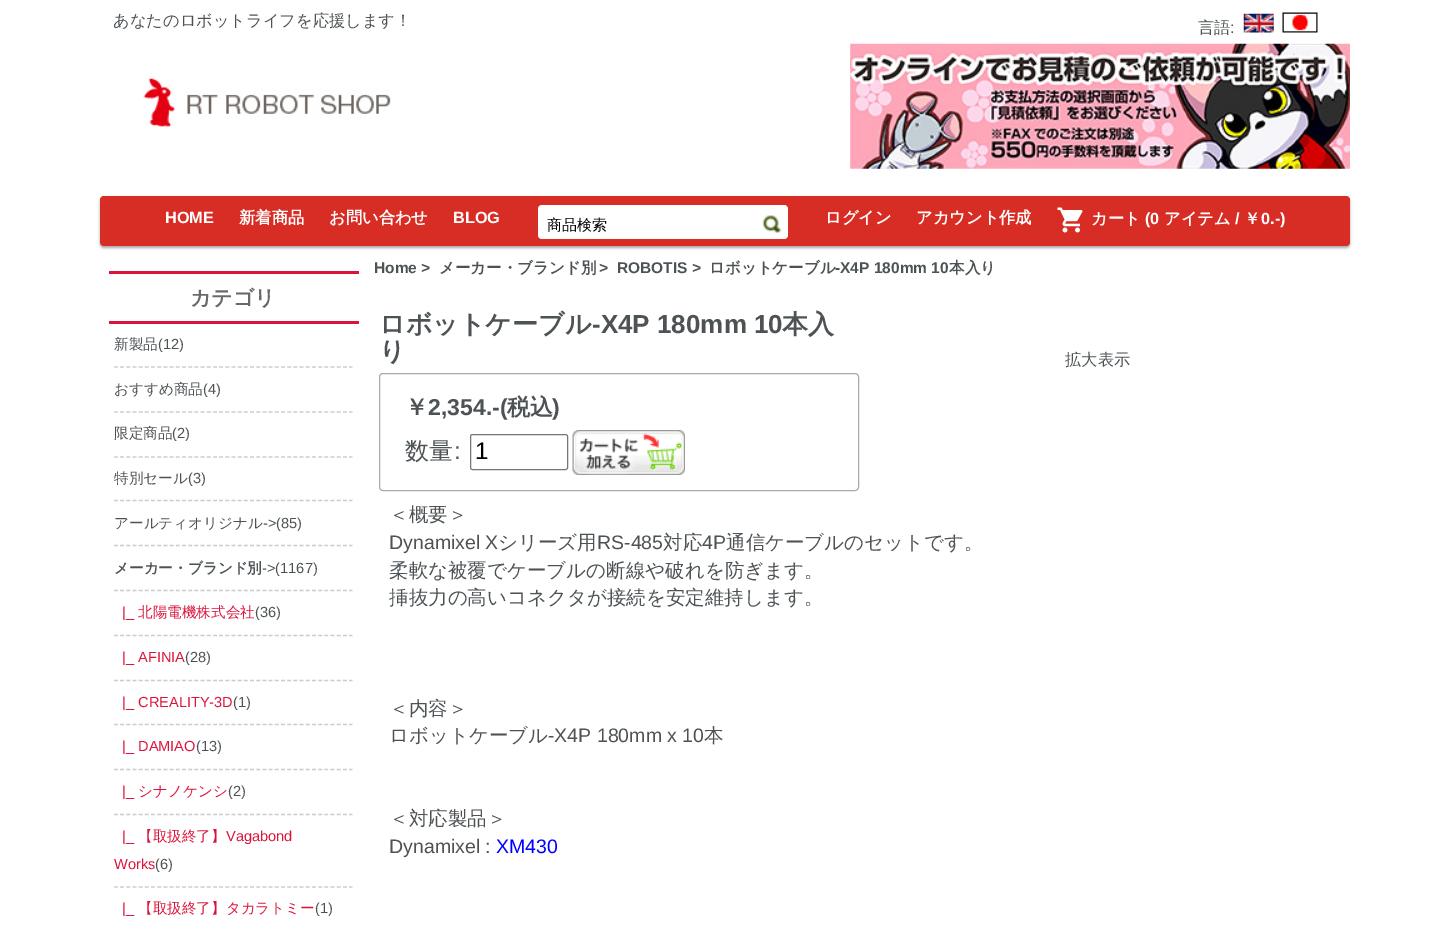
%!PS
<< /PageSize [1450 925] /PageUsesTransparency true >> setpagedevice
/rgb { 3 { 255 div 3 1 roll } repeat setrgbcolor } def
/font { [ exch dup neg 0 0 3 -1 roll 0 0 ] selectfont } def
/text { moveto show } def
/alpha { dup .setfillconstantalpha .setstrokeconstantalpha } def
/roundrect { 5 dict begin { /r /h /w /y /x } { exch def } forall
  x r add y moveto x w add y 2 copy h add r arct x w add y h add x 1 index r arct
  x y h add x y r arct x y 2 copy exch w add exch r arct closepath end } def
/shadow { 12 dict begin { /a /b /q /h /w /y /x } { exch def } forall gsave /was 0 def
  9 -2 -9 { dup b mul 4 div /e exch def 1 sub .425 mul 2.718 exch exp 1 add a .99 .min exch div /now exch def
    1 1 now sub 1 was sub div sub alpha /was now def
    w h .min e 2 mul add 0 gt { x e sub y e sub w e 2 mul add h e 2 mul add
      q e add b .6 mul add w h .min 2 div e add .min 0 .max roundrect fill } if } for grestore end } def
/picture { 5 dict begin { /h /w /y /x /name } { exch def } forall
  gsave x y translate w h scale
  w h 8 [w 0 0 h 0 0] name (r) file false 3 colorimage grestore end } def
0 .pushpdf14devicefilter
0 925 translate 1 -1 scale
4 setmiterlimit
255 255 255 rgb
0 0 1450 925 rectfill
(img_01.rgb) 1243 13 31 20 picture
(img_02.rgb) 1282 12 36 21 picture
(img_03.rgb) 143 78 248 49 picture
(img_04.rgb) 850 43 500 126 picture
0 0 0 rgb
100 198 1250 50 4 1 0.24 shadow
100 198 1250 50 4 2 0.12 shadow
215 45 37 rgb
100 196 1250 50 4 roundrect fill
255 255 255 rgb
538 205 250 34 4 roundrect fill
(img_05.rgb) 762 215 20 18 picture
(img_06.rgb) 1057 207 26 26 picture
220 20 60 rgb
109 271 250 3 rectfill
109 321 250 3 rectfill
204 204 204 rgb
1.2 setlinewidth
[3.75 2.44] 0 setdash
114 367 moveto 238.5 0 rlineto stroke
114 412 moveto 238.5 0 rlineto stroke
114 457 moveto 238.5 0 rlineto stroke
114 500.5 moveto 238.5 0 rlineto stroke
114 545.5 moveto 238.5 0 rlineto stroke
114 590.5 moveto 238.5 0 rlineto stroke
114 635.5 moveto 238.5 0 rlineto stroke
114 680.5 moveto 238.5 0 rlineto stroke
114 724.5 moveto 238.5 0 rlineto stroke
114 769.5 moveto 238.5 0 rlineto stroke
114 814.5 moveto 238.5 0 rlineto stroke
114 887 moveto 238.5 0 rlineto stroke
170 170 170 rgb
1 setlinewidth
[] 0 setdash
379.5 373.5 479 117 3.5 roundrect stroke
118 118 118 rgb
470.5 434.5 97 35 2 roundrect stroke
(img_07.rgb) 572 430 113 45 picture
/WenQuanYiZenHei-Medium 16.25 font
77 82 85 rgb
(あなたのロボットライフを応援します！) 113 26 text
(言語) 1198 33 text
/LiberationSans-Regular 16.25 font
(:) 1230 33 text
/LiberationSans-Bold 16.25 font
255 255 255 rgb
(HOME) 165 223 text
/WenQuanYiZenHei-Bold 16.25 font
(新着商品) 239 223 text
(お問い合わせ) 329 223 text
/LiberationSans-Bold 16.25 font
(BLOG) 453 223 text
/WenQuanYiZenHei-Medium 15 font
0 0 0 rgb
(商品検索) 547 230 text
/WenQuanYiZenHei-Bold 16.25 font
255 255 255 rgb
(ログイン) 825 223 text
(アカウント作成) 916 223 text
(カート) 1091 224 text
/LiberationSans-Bold 16.25 font
(\(0) 1145 224 text
/WenQuanYiZenHei-Bold 16.25 font
(アイテム) 1164 224 text
/LiberationSans-Bold 16.25 font
(/) 1235 224 text
/WenQuanYiZenHei-Bold 16.25 font
(￥) 1244 224 text
/LiberationSans-Bold 16.25 font
(0.-\)) 1261 224 text
/WenQuanYiZenHei-Bold 21 font
105 105 105 rgb
(カテゴリ) 190 305 text
/WenQuanYiZenHei-Medium 14.6 font
77 82 85 rgb
(新製品) 114 349 text
/LiberationSans-Regular 14.6 font
(\(12\)) 158 349 text
/WenQuanYiZenHei-Medium 14.6 font
(おすすめ商品) 114 394 text
/LiberationSans-Regular 14.6 font
(\(4\)) 203 394 text
/WenQuanYiZenHei-Medium 14.6 font
(限定商品) 114 438 text
/LiberationSans-Regular 14.6 font
(\(2\)) 172 438 text
/WenQuanYiZenHei-Medium 14.6 font
(特別セール) 114 483 text
/LiberationSans-Regular 14.6 font
(\(3\)) 188 483 text
/WenQuanYiZenHei-Medium 14.6 font
(アールティオリジナル) 114 528 text
/LiberationSans-Regular 14.6 font
(->\(85\)) 263 528 text
/WenQuanYiZenHei-Bold 14.6 font
(メーカー・ブランド別) 114 573 text
/LiberationSans-Regular 14.6 font
(->\(1167\)) 262 573 text
220 20 60 rgb
(|_) 122 617 text
/WenQuanYiZenHei-Medium 14.6 font
(北陽電機株式会社) 138 617 text
/LiberationSans-Regular 14.6 font
77 82 85 rgb
(\(36\)) 255 617 text
220 20 60 rgb
(|_ AFINIA) 122 662 text
77 82 85 rgb
(\(28\)) 185 662 text
220 20 60 rgb
(|_ CREALITY-3D) 122 707 text
77 82 85 rgb
(\(1\)) 233 707 text
220 20 60 rgb
(|_ DAMIAO) 122 751 text
77 82 85 rgb
(\(13\)) 196 751 text
220 20 60 rgb
(|_) 122 796 text
/WenQuanYiZenHei-Medium 14.6 font
(シナノケンシ) 138 796 text
/LiberationSans-Regular 14.6 font
77 82 85 rgb
(\(2\)) 228 796 text
220 20 60 rgb
(|_) 122 841 text
/WenQuanYiZenHei-Medium 14.6 font
(【取扱終了】) 138 841 text
/LiberationSans-Regular 14.6 font
(Vagabond) 226 841 text
(Works) 114 869 text
77 82 85 rgb
(\(6\)) 155 869 text
220 20 60 rgb
(|_) 122 913 text
/WenQuanYiZenHei-Medium 14.6 font
(【取扱終了】タカラトミー) 138 913 text
/LiberationSans-Regular 14.6 font
77 82 85 rgb
(\(1\)) 315 913 text
/LiberationSans-Bold 15.5 font
(Home >) 374 273 text
/WenQuanYiZenHei-Bold 15.5 font
(メーカー・ブランド別) 439 273 text
/LiberationSans-Bold 15.5 font
(>) 599 273 text
(ROBOTIS >) 617 273 text
/WenQuanYiZenHei-Bold 15.5 font
(ロボットケーブル) 709 273 text
/LiberationSans-Bold 15.5 font
(-X4P 180mm 10) 835 273 text
/WenQuanYiZenHei-Bold 15.5 font
(本入り) 949 273 text
/WenQuanYiZenHei-Bold 26 font
(ロボットケーブル) 379 333 text
/LiberationSans-Bold 26 font
(-X4P 180mm 10) 592 333 text
/WenQuanYiZenHei-Bold 26 font
(本入) 782 333 text
(り) 379 360 text
/WenQuanYiZenHei-Medium 16.25 font
(拡大表示) 1065 365 text
/WenQuanYiZenHei-Bold 23 font
(￥) 405 415 text
/LiberationSans-Bold 23 font
(2,354.-\() 428 415 text
/WenQuanYiZenHei-Bold 23 font
(税込) 507 415 text
/LiberationSans-Bold 23 font
(\)) 552 415 text
/WenQuanYiZenHei-Medium 24 font
(数量) 405 459 text
/LiberationSans-Regular 24 font
(:) 454 459 text
0 0 0 rgb
(1) 475 459 text
/WenQuanYiZenHei-Medium 19.5 font
77 82 85 rgb
(＜概要＞) 389 521 text
/LiberationSans-Regular 19.5 font
(Dynamixel X) 389 549 text
/WenQuanYiZenHei-Medium 19.5 font
(シリーズ用) 498 549 text
/LiberationSans-Regular 19.5 font
(RS-485) 597 549 text
/WenQuanYiZenHei-Medium 19.5 font
(対応) 663 549 text
/LiberationSans-Regular 19.5 font
(4P) 702 549 text
/WenQuanYiZenHei-Medium 19.5 font
(通信ケーブルのセットです。) 726 549 text
(柔軟な被覆でケーブルの断線や破れを防ぎます。) 389 577 text
(挿抜力の高いコネクタが接続を安定維持します。) 389 604 text
(＜内容＞) 389 715 text
(ロボットケーブル) 389 742 text
/LiberationSans-Regular 19.5 font
(-X4P 180mm x 10) 548 742 text
/WenQuanYiZenHei-Medium 19.5 font
(本) 704 742 text
(＜対応製品＞) 389 825 text
/LiberationSans-Regular 19.5 font
(Dynamixel :) 389 853 text
0 0 255 rgb
(XM430) 496 853 text
.poppdf14devicefilter showpage
